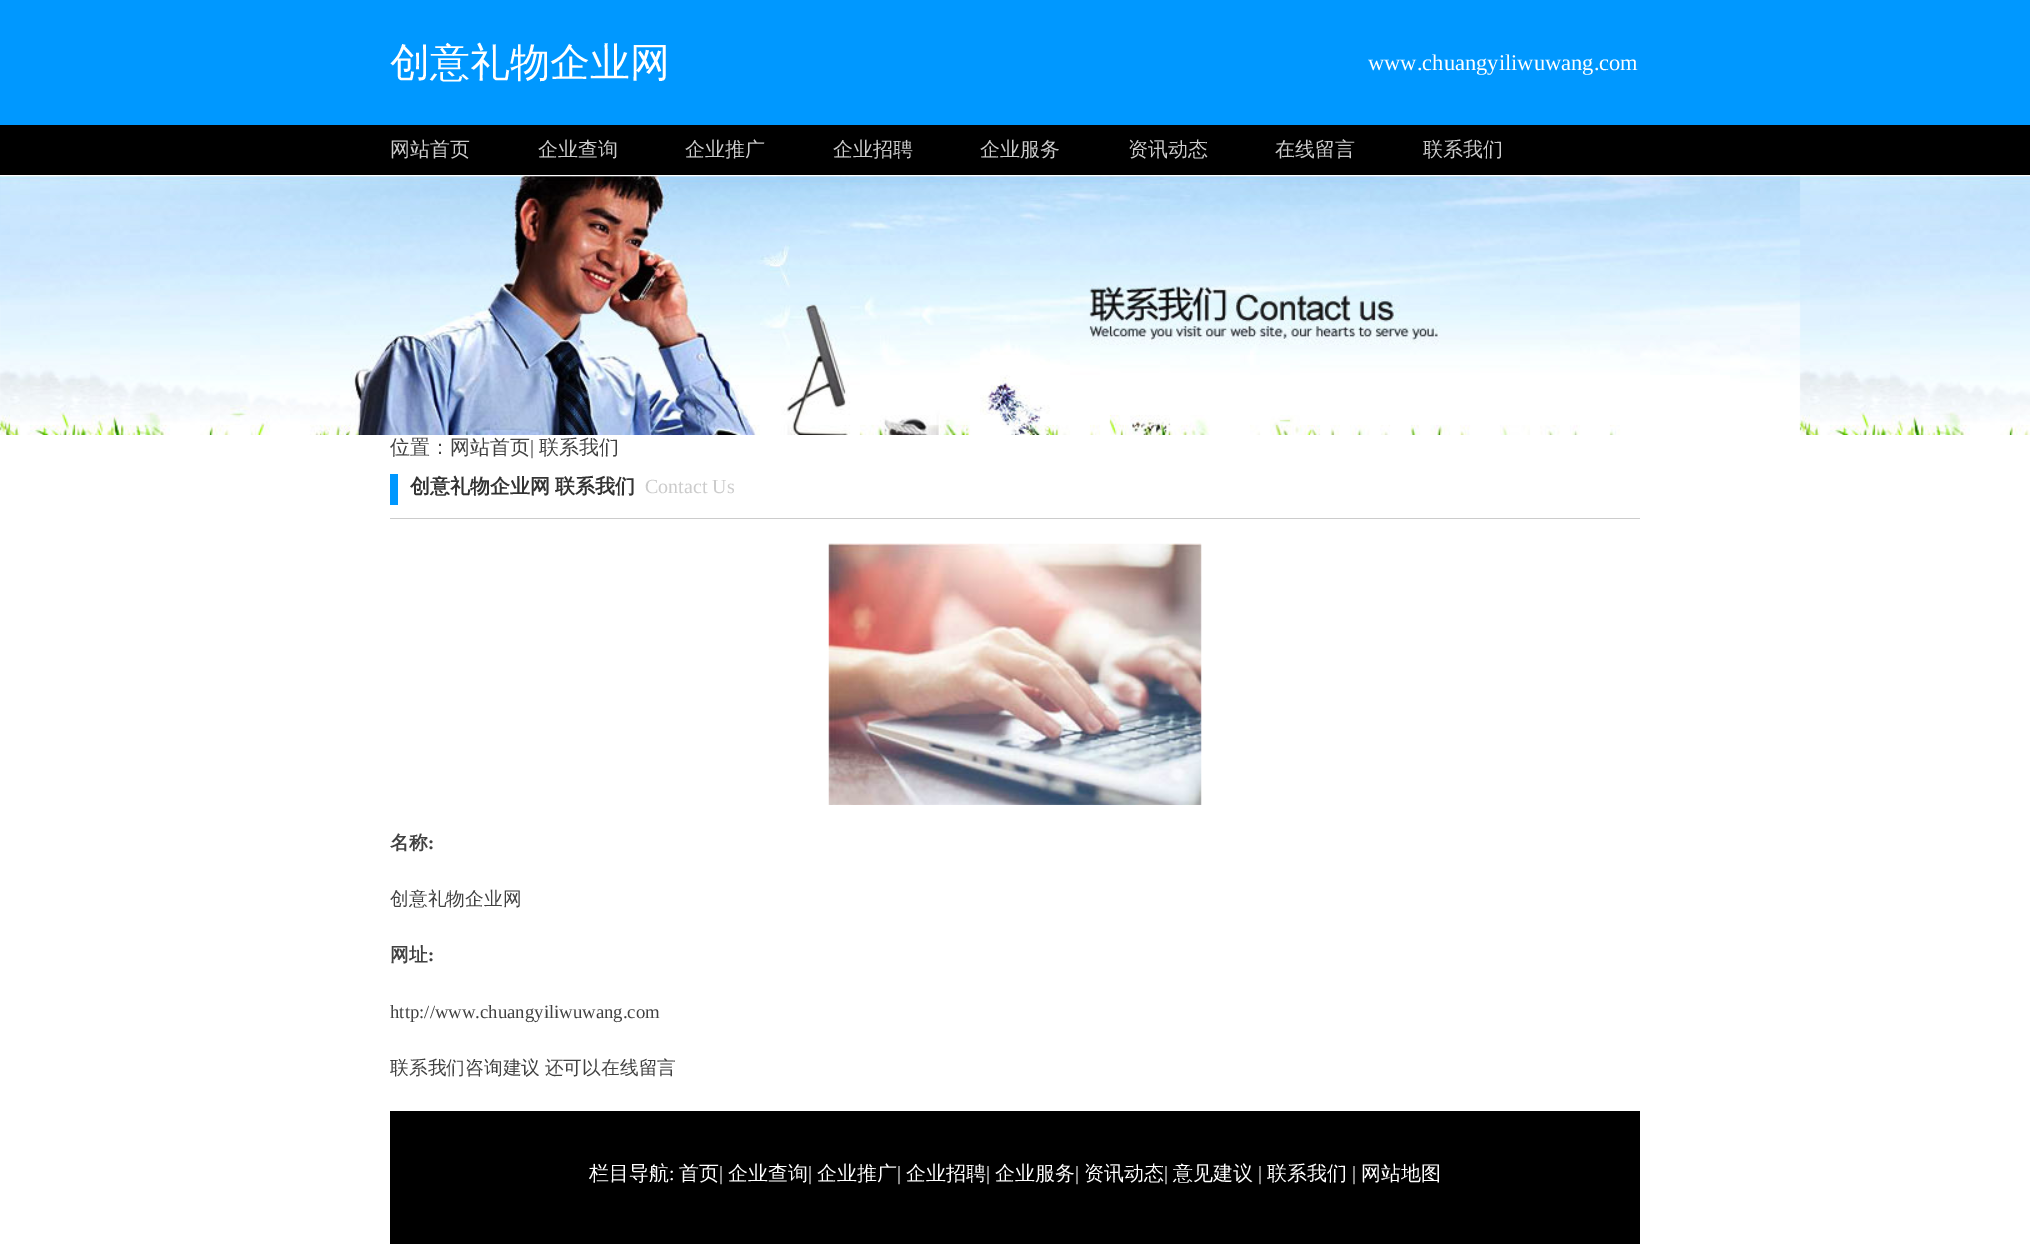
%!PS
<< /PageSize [2030 1244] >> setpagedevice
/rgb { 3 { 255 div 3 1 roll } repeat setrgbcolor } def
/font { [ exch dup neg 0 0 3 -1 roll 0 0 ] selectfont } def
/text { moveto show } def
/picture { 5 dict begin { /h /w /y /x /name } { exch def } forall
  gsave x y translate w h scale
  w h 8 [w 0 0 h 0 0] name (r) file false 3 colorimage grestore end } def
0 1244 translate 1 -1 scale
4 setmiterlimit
255 255 255 rgb
0 0 2030 1244 rectfill
0 152 255 rgb
0 0 2030 125 rectfill
0 0 0 rgb
0 125 2030 50 rectfill
(img_01.rgb) 0 175 2030 260 picture
204 204 204 rgb
390 518 1250 1 rectfill
0 152 255 rgb
390 474 8 31 rectfill
(img_02.rgb) 828 543 374 262 picture
0 0 0 rgb
390 1111 1250 133 rectfill
/WenQuanYiZenHei-Medium 40 font
255 255 255 rgb
(创意礼物企业网) 390 76 text
/LiberationSerif-Regular 22.5 font
(www.chuangyiliwuwang.com) 1368 70 text
/WenQuanYiZenHei-Medium 20 font
204 204 204 rgb
(网站首页) 390 156 text
(企业查询) 538 156 text
(企业推广) 685 156 text
(企业招聘) 833 156 text
(企业服务) 980 156 text
(资讯动态) 1128 156 text
(在线留言) 1275 156 text
(联系我们) 1423 156 text
65 65 65 rgb
(位置：网站首页) 390 454 text
/LiberationSerif-Regular 20 font
(|) 530 454 text
/WenQuanYiZenHei-Medium 20 font
(联系我们) 539 454 text
/WenQuanYiZenHei-Bold 20 font
51 51 51 rgb
(创意礼物企业网) 410 493 text
(联系我们) 555 493 text
/LiberationSerif-Regular 20 font
204 204 204 rgb
(Contact Us) 645 493 text
/WenQuanYiZenHei-Bold 18.75 font
65 65 65 rgb
(名称) 390 849 text
/LiberationSerif-Bold 18.75 font
(:) 428 849 text
/WenQuanYiZenHei-Medium 18.75 font
(创意礼物企业网) 390 905 text
/WenQuanYiZenHei-Bold 18.75 font
(网址) 390 961 text
/LiberationSerif-Bold 18.75 font
(:) 428 961 text
/LiberationSerif-Regular 18.75 font
(http://www.chuangyiliwuwang.com) 390 1018 text
/WenQuanYiZenHei-Medium 18.75 font
390 1074 moveto -1 0 32 (联系我们咨询建议 还可以) widthshow
(在线留言) 601 1074 text
/WenQuanYiZenHei-Medium 20 font
255 255 255 rgb
(栏目导航) 589 1180 text
/LiberationSerif-Regular 20 font
(:) 669 1180 text
/WenQuanYiZenHei-Medium 20 font
(首页) 679 1180 text
/LiberationSerif-Regular 20 font
(|) 719 1180 text
/WenQuanYiZenHei-Medium 20 font
(企业查询) 728 1180 text
/LiberationSerif-Regular 20 font
(|) 808 1180 text
/WenQuanYiZenHei-Medium 20 font
(企业推广) 817 1180 text
/LiberationSerif-Regular 20 font
(|) 897 1180 text
/WenQuanYiZenHei-Medium 20 font
(企业招聘) 906 1180 text
/LiberationSerif-Regular 20 font
(|) 986 1180 text
/WenQuanYiZenHei-Medium 20 font
(企业服务) 995 1180 text
/LiberationSerif-Regular 20 font
(|) 1075 1180 text
/WenQuanYiZenHei-Medium 20 font
(资讯动态) 1084 1180 text
/LiberationSerif-Regular 20 font
(|) 1164 1180 text
/WenQuanYiZenHei-Medium 20 font
(意见建议) 1173 1180 text
/LiberationSerif-Regular 20 font
(|) 1258 1180 text
/WenQuanYiZenHei-Medium 20 font
(联系我们) 1267 1180 text
/LiberationSerif-Regular 20 font
(|) 1352 1180 text
/WenQuanYiZenHei-Medium 20 font
(网站地图) 1361 1180 text
showpage
